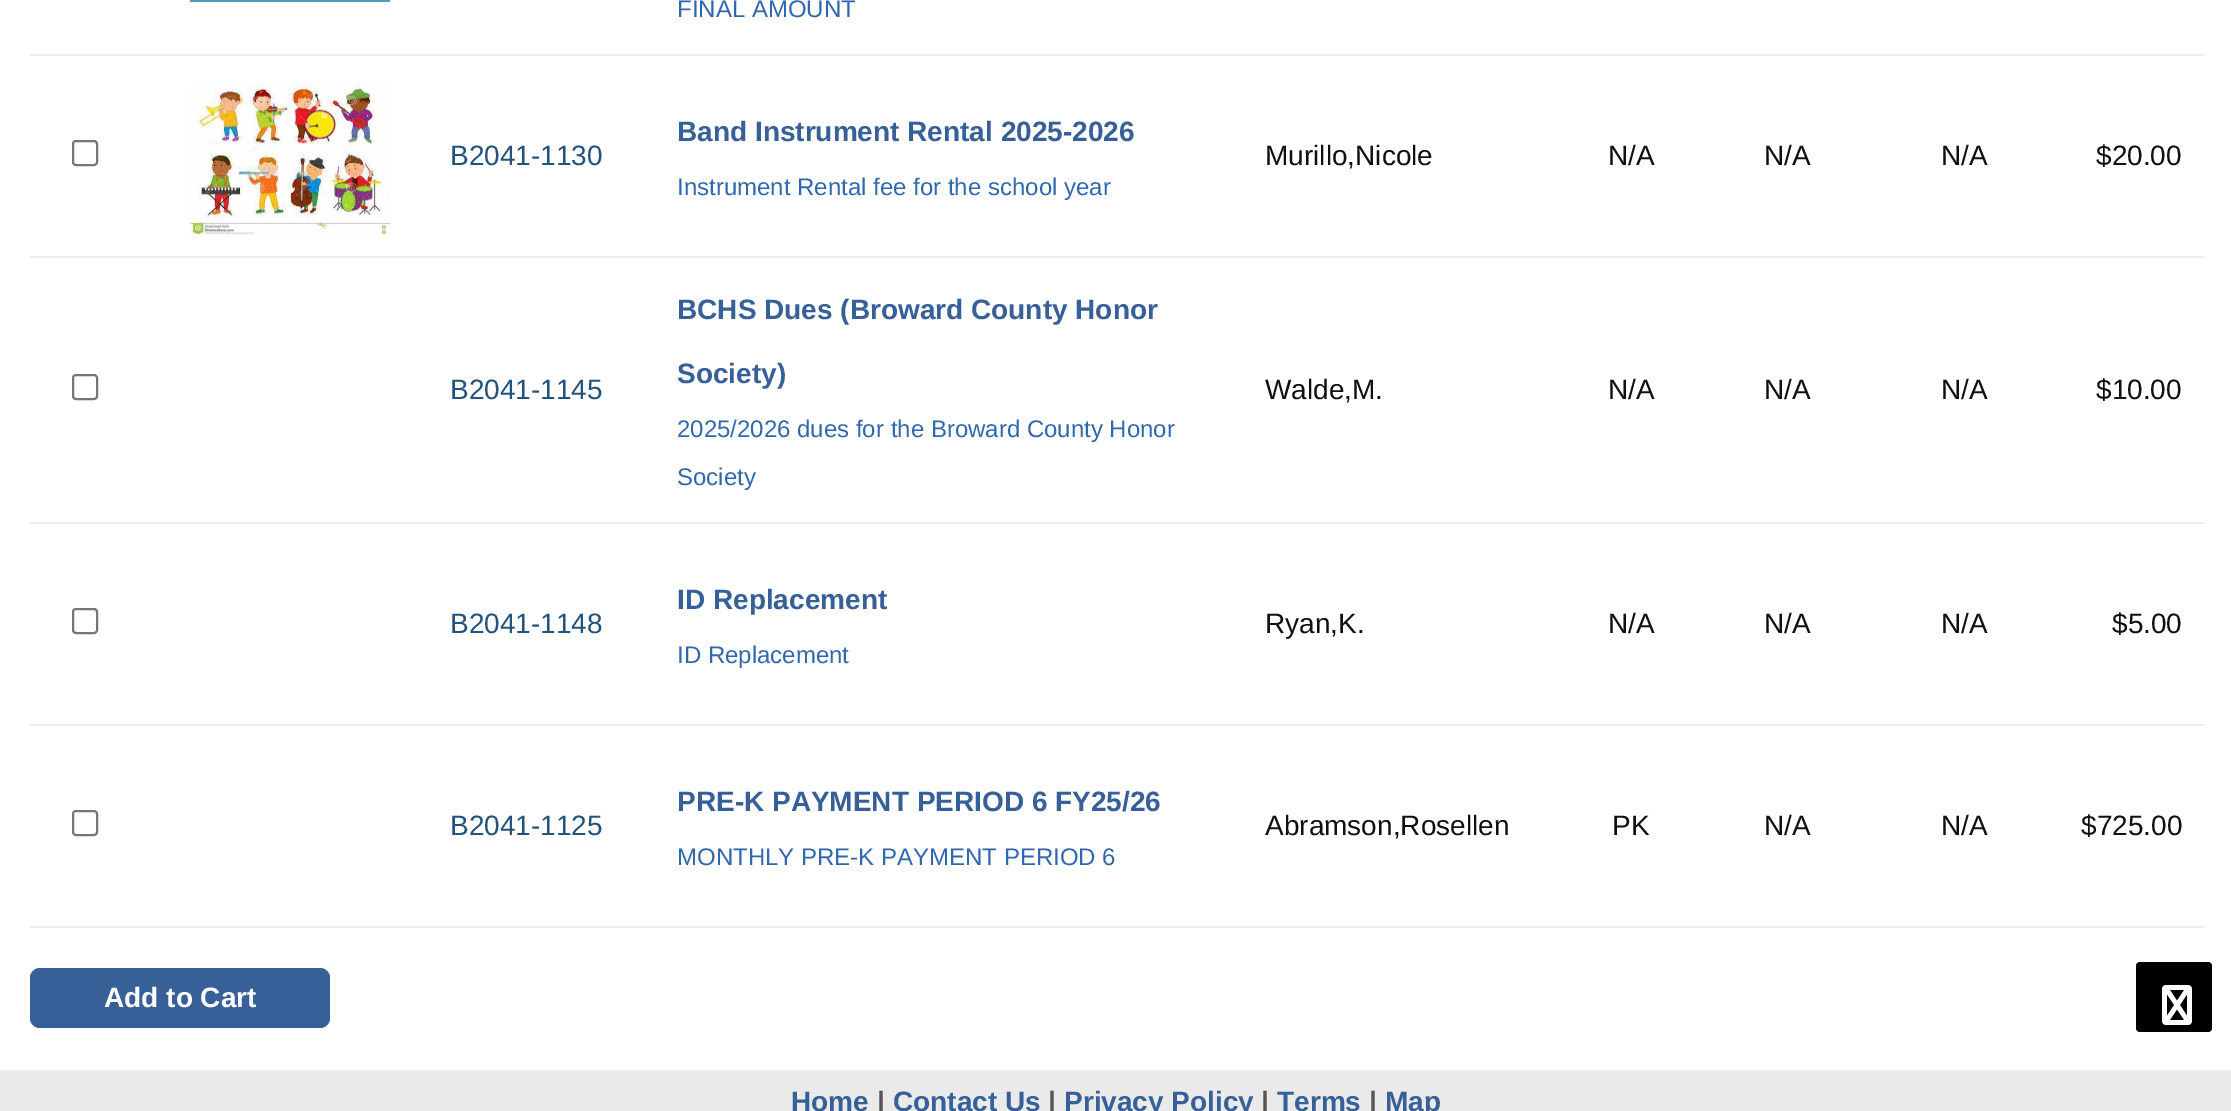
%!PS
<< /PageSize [2231 1111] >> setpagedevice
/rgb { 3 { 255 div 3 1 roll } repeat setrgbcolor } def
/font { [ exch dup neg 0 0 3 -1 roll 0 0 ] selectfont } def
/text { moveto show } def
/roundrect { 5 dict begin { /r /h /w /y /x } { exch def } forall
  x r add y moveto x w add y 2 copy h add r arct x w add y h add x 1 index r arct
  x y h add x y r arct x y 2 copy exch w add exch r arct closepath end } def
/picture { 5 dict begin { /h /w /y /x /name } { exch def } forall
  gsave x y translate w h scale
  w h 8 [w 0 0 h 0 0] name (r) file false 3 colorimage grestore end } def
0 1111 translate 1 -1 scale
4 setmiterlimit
255 255 255 rgb
0 0 2231 1111 rectfill
237 237 237 rgb
30 54 2174 2 rectfill
77 156 186 rgb
190 0 200 2 rectfill
237 237 237 rgb
30 256 2174 2 rectfill
118 118 118 rgb
2 setlinewidth
73 141 24 24 3 roundrect stroke
(img_01.rgb) 190 83 200 153 picture
237 237 237 rgb
30 522 2174 2 rectfill
118 118 118 rgb
73 375 24 24 3 roundrect stroke
237 237 237 rgb
30 724 2174 2 rectfill
118 118 118 rgb
73 609 24 24 3 roundrect stroke
237 237 237 rgb
30 926 2174 2 rectfill
118 118 118 rgb
73 811 24 24 3 roundrect stroke
55 96 153 rgb
30 968 300 60 10 roundrect fill
0 0 0 rgb
2136 962 76 70 4 roundrect fill
(img_02.rgb) 2162 985 30 40 picture
234 234 234 rgb
0 1070 2231 41 rectfill
/LiberationSans-Regular 24 font
49 103 173 rgb
(FINAL AMOUNT) 677 17 text
/LiberationSans-Regular 28 font
35 82 124 rgb
(B2041-1130) 450 165 text
/LiberationSans-Bold 28 font
55 96 153 rgb
(Band Instrument Rental 2025-2026) 677 141 text
/LiberationSans-Regular 24 font
49 103 173 rgb
(Instrument Rental fee for the school year) 677 195 text
/LiberationSans-Regular 28 font
16 16 16 rgb
(Murillo,Nicole) 1265 165 text
(N/A) 1608 165 text
(N/A) 1764 165 text
(N/A) 1941 165 text
($20.00) 2096 165 text
35 82 124 rgb
(B2041-1145) 450 399 text
/LiberationSans-Bold 28 font
55 96 153 rgb
(BCHS Dues \(Broward County Honor) 677 319 text
(Society\)) 677 383 text
/LiberationSans-Regular 24 font
49 103 173 rgb
(2025/2026 dues for the Broward County Honor) 677 437 text
(Society) 677 485 text
/LiberationSans-Regular 28 font
16 16 16 rgb
(Walde,M.) 1265 399 text
(N/A) 1608 399 text
(N/A) 1764 399 text
(N/A) 1941 399 text
($10.00) 2096 399 text
35 82 124 rgb
(B2041-1148) 450 633 text
/LiberationSans-Bold 28 font
55 96 153 rgb
(ID Replacement) 677 609 text
/LiberationSans-Regular 24 font
49 103 173 rgb
(ID Replacement) 677 663 text
/LiberationSans-Regular 28 font
16 16 16 rgb
(Ryan,K.) 1265 633 text
(N/A) 1608 633 text
(N/A) 1764 633 text
(N/A) 1941 633 text
($5.00) 2112 633 text
35 82 124 rgb
(B2041-1125) 450 835 text
/LiberationSans-Bold 28 font
55 96 153 rgb
(PRE-K PAYMENT PERIOD 6 FY25/26) 677 811 text
/LiberationSans-Regular 24 font
49 103 173 rgb
(MONTHLY PRE-K PAYMENT PERIOD 6) 677 865 text
/LiberationSans-Regular 28 font
16 16 16 rgb
(Abramson,Rosellen) 1265 835 text
(PK) 1612 835 text
(N/A) 1764 835 text
(N/A) 1941 835 text
($725.00) 2081 835 text
/LiberationSans-Bold 28 font
255 255 255 rgb
(Add to Cart) 104 1007 text
55 96 153 rgb
(Home) 791 1111 text
87 85 85 rgb
(|) 877 1111 text
55 96 153 rgb
(Contact Us) 893 1111 text
87 85 85 rgb
(|) 1048 1111 text
55 96 153 rgb
(Privacy Policy) 1064 1111 text
87 85 85 rgb
(|) 1261 1111 text
55 96 153 rgb
(Terms) 1277 1111 text
87 85 85 rgb
(|) 1369 1111 text
55 96 153 rgb
(Map) 1385 1111 text
showpage
